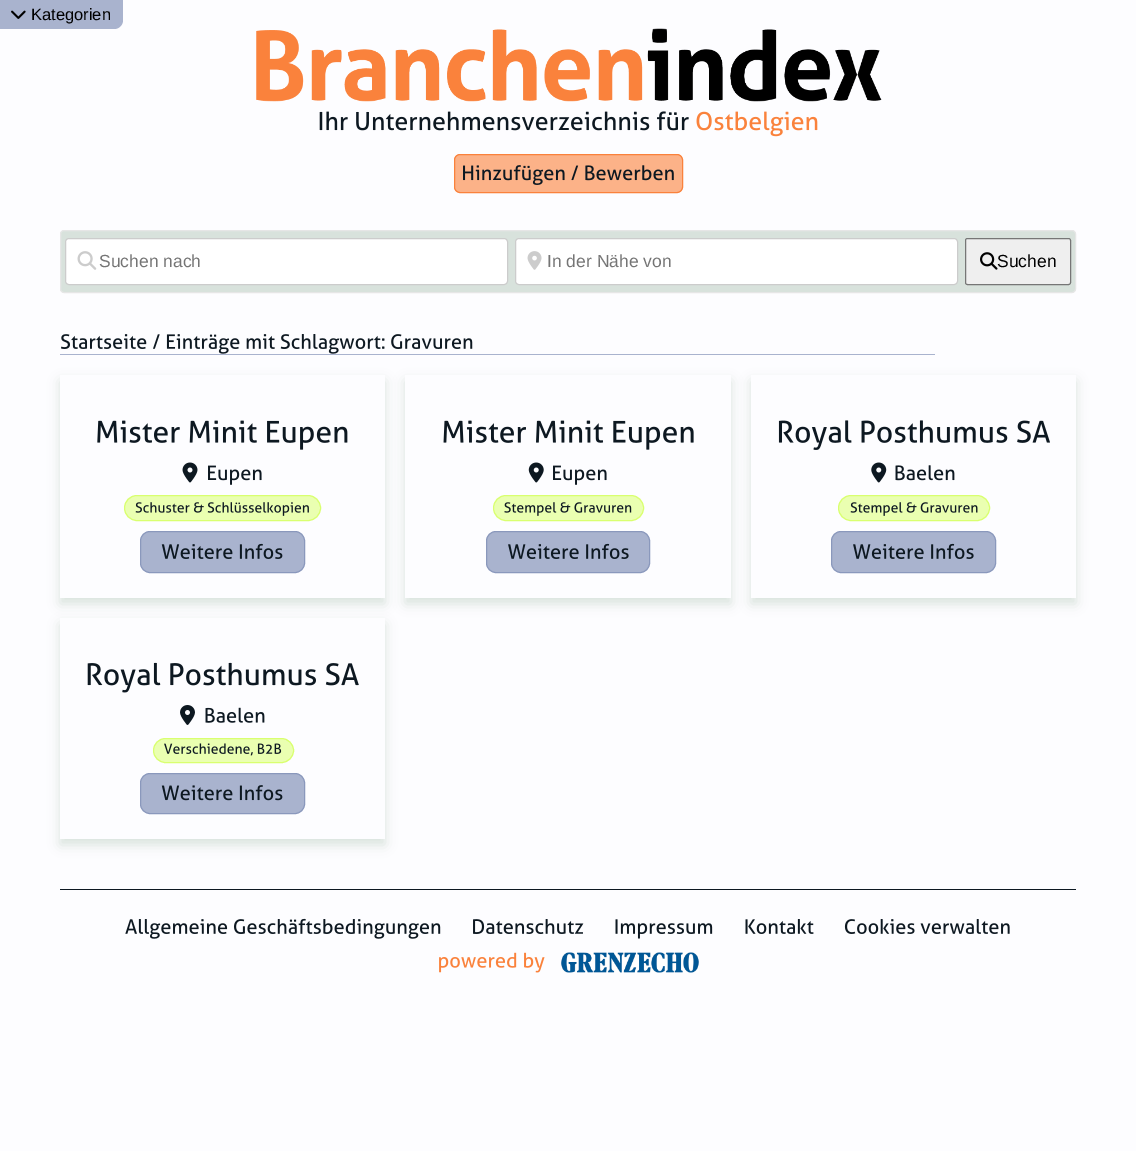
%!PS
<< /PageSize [1136 1151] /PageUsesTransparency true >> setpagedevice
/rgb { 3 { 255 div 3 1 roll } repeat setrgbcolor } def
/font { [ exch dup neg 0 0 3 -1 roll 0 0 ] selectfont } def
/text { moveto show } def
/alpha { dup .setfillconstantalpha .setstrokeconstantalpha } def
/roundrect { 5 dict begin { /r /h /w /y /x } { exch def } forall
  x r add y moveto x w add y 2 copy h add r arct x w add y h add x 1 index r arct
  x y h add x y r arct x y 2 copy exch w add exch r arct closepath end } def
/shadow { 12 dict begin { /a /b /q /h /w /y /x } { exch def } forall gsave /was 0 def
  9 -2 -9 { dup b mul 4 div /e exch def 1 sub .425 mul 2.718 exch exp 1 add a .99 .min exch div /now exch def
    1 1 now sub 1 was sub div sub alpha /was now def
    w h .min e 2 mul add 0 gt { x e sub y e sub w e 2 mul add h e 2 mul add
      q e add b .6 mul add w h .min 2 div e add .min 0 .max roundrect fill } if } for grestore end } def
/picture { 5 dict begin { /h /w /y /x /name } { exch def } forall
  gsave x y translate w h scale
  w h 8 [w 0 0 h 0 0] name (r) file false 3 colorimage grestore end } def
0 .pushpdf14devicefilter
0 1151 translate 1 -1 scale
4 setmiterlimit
253 253 255 rgb
0 0 1136 1151 rectfill
169 179 206 rgb
0 0 moveto 123 0 rlineto 0 20 rlineto 0 5 -4 9 -9 9 rcurveto -114 0 rlineto closepath fill
(img_01.rgb) 11 10 15 9 picture
(img_02.rgb) 256 28 626 74 picture
(img_03.rgb) 319 111 370 20 picture
(img_04.rgb) 696 111 122 26 picture
252 178 136 rgb
454.5 154.5 228 38 5.5 roundrect gsave fill grestore
250 130 60 rgb
stroke
(img_05.rgb) 463 165 211 20 picture
216 226 220 rgb
60.5 230.5 1015 62 3.5 roundrect gsave fill grestore
230 230 230 rgb
stroke
255 255 255 rgb
65.5 238.5 442 46 3.5 roundrect gsave fill grestore
204 204 204 rgb
stroke
(img_06.rgb) 77 251 20 19 picture
255 255 255 rgb
515.5 238.5 442 46 3.5 roundrect gsave fill grestore
204 204 204 rgb
stroke
(img_07.rgb) 527 251 15 19 picture
239 239 239 rgb
965.5 238.5 105 46 2 roundrect gsave fill grestore
118 118 118 rgb
stroke
(img_08.rgb) 980 252 18 18 picture
169 179 206 rgb
60 354 875 1 rectfill
(img_09.rgb) 61 334 86 15 picture
(img_10.rgb) 153 334 232 20 picture
(img_11.rgb) 391 334 82 15 picture
gsave
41 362 moveto 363 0 rlineto 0 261 rlineto -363 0 rlineto closepath 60 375 moveto 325 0 rlineto 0 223 rlineto -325 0 rlineto closepath eoclip newpath
216 226 220 rgb
60 381 325 223 0 6 1 shadow
grestore
(img_12.rgb) 97 420 251 30 picture
(img_13.rgb) 182 462 16 21 picture
(img_14.rgb) 208 465 54 20 picture
234 255 177 rgb
124.5 495.5 196 25 12.5 roundrect gsave fill grestore
217 255 112 rgb
stroke
(img_15.rgb) 135 502 174 14 picture
169 179 206 rgb
140.5 531.5 164 41 9.5 roundrect gsave fill grestore
138 152 188 rgb
stroke
(img_16.rgb) 161 543 122 16 picture
gsave
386 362 moveto 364 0 rlineto 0 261 rlineto -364 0 rlineto closepath 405 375 moveto 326 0 rlineto 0 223 rlineto -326 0 rlineto closepath eoclip newpath
216 226 220 rgb
405 381 326 223 0 6 1 shadow
grestore
(img_17.rgb) 443 420 251 30 picture
(img_18.rgb) 528 462 16 21 picture
(img_14.rgb) 553 465 54 20 picture
234 255 177 rgb
493.5 495.5 150 25 12.5 roundrect gsave fill grestore
217 255 112 rgb
stroke
(img_19.rgb) 504 502 128 14 picture
169 179 206 rgb
486.5 531.5 163 41 9.5 roundrect gsave fill grestore
138 152 188 rgb
stroke
(img_20.rgb) 508 543 121 16 picture
gsave
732 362 moveto 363 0 rlineto 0 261 rlineto -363 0 rlineto closepath 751 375 moveto 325 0 rlineto 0 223 rlineto -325 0 rlineto closepath eoclip newpath
216 226 220 rgb
751 381 325 223 0 6 1 shadow
grestore
(img_21.rgb) 778 420 272 30 picture
(img_22.rgb) 871 462 16 21 picture
(img_23.rgb) 895 465 60 16 picture
234 255 177 rgb
838.5 495.5 151 25 12.5 roundrect gsave fill grestore
217 255 112 rgb
stroke
(img_24.rgb) 850 502 128 14 picture
169 179 206 rgb
831.5 531.5 164 41 9.5 roundrect gsave fill grestore
138 152 188 rgb
stroke
(img_20.rgb) 853 543 121 16 picture
gsave
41 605 moveto 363 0 rlineto 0 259 rlineto -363 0 rlineto closepath 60 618 moveto 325 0 rlineto 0 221 rlineto -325 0 rlineto closepath eoclip newpath
216 226 220 rgb
60 624 325 221 0 6 1 shadow
grestore
(img_25.rgb) 87 662 272 31 picture
(img_26.rgb) 180 705 15 20 picture
(img_27.rgb) 205 707 60 16 picture
234 255 177 rgb
153.5 738.5 140 24 12 roundrect gsave fill grestore
217 255 112 rgb
stroke
(img_28.rgb) 164 743 118 13 picture
169 179 206 rgb
140.5 773.5 164 40 9.5 roundrect gsave fill grestore
138 152 188 rgb
stroke
(img_29.rgb) 161 785 122 16 picture
13 24 33 rgb
60 889 1016 1 rectfill
(img_30.rgb) 125 918 316 21 picture
(img_31.rgb) 473 919 111 15 picture
(img_32.rgb) 615 919 98 20 picture
(img_33.rgb) 745 919 69 15 picture
(img_34.rgb) 844 919 166 15 picture
(img_35.rgb) 439 952 106 21 picture
(img_36.rgb) 561 952 138 21 picture
/LiberationSans-Regular 16.5 font
0 0 0 rgb
(Kategorien) 31 20 text
/LiberationSans-Regular 17.5 font
117 117 117 rgb
(Suchen nach) 99 267 text
(In der Nähe von) 547 267 text
0 0 0 rgb
(Suchen) 997 267 text
.poppdf14devicefilter showpage
